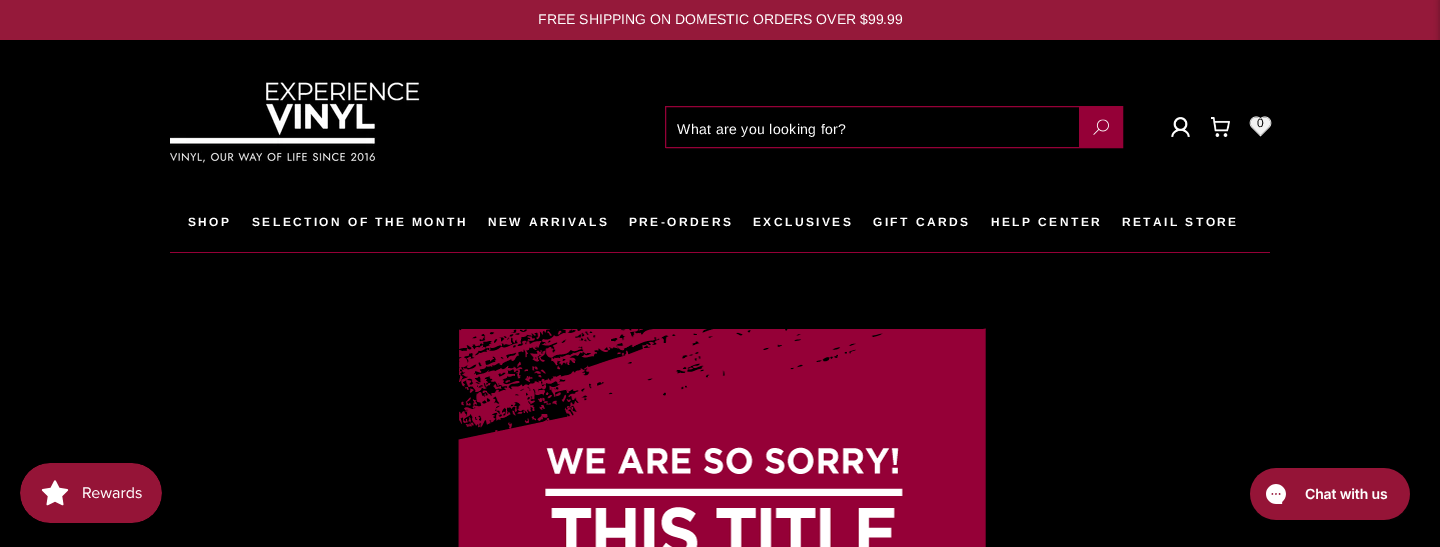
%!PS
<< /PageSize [1440 547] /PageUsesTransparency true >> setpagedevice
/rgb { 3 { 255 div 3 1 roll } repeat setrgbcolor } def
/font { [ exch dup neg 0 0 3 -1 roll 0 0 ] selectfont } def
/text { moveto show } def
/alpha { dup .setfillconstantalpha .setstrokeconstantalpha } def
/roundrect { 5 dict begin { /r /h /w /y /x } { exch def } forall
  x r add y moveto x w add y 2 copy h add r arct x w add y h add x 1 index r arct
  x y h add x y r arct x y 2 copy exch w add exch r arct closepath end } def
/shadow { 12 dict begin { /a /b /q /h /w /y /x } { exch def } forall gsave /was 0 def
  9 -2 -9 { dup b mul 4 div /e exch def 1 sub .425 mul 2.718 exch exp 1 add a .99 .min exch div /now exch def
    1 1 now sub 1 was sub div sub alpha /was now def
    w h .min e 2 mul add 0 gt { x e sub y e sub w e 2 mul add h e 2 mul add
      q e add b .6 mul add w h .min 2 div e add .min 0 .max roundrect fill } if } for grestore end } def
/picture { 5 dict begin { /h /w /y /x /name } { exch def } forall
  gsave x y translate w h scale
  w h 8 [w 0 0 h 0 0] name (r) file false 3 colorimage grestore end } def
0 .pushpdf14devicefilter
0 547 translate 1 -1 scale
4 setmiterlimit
0 0 0 rgb
0 0 1440 547 rectfill
149 25 58 rgb
0 0 1440 40 rectfill
0 0 0 rgb
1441 0 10 547 0 3.5 0.5 shadow
(img_01.rgb) 170 82 250 81 picture
149 0 55 rgb
666 106.5 moveto 456.5 0 rlineto 0 41 rlineto -456.5 0 rlineto -0.5 0 -0.5 0 -0.5 -0.5 rcurveto 0 -40 rlineto 0 -0.5 0 -0.5 0.5 -0.5 rcurveto closepath stroke
1079 106 moveto 42 0 rlineto 1 0 2 1 2 2 rcurveto 0 38 rlineto 0 1 -1 2 -2 2 rcurveto -42 0 rlineto closepath fill
(img_02.rgb) 1093 119 16 16 picture
(img_03.rgb) 1171 117 19 20 picture
(img_04.rgb) 1211 117 19 20 picture
(img_05.rgb) 1249 116 23 21 picture
170 252 1100 1 rectfill
(img_06.rgb) 20 463 142 60 picture
(img_07.rgb) 458 328 528 219 picture
(img_08.rgb) 1250 468 160 52 picture
/LiberationSans-Regular 14 font
255 255 255 rgb
(FREE SHIPPING ON DOMESTIC ORDERS OVER $99.99) 538 24 text
677 134 moveto 0.4 0 (What are you looking for?) ashow
/LiberationSans-Regular 12 font
18 18 18 rgb
1257 127 moveto 1 0 (0) ashow
/LiberationSans-Bold 12 font
255 255 255 rgb
188 226 moveto 2.4 0 (SHOP) ashow
252 226 moveto 2.4 0 (SELECTION OF THE MONTH) ashow
488 226 moveto 2.4 0 (NEW ARRIVALS) ashow
629 226 moveto 2.4 0 (PRE-ORDERS) ashow
753 226 moveto 2.4 0 (EXCLUSIVES) ashow
873 226 moveto 2.4 0 (GIFT CARDS) ashow
991 226 moveto 2.4 0 (HELP CENTER) ashow
1122 226 moveto 2.4 0 (RETAIL STORE) ashow
.poppdf14devicefilter showpage
